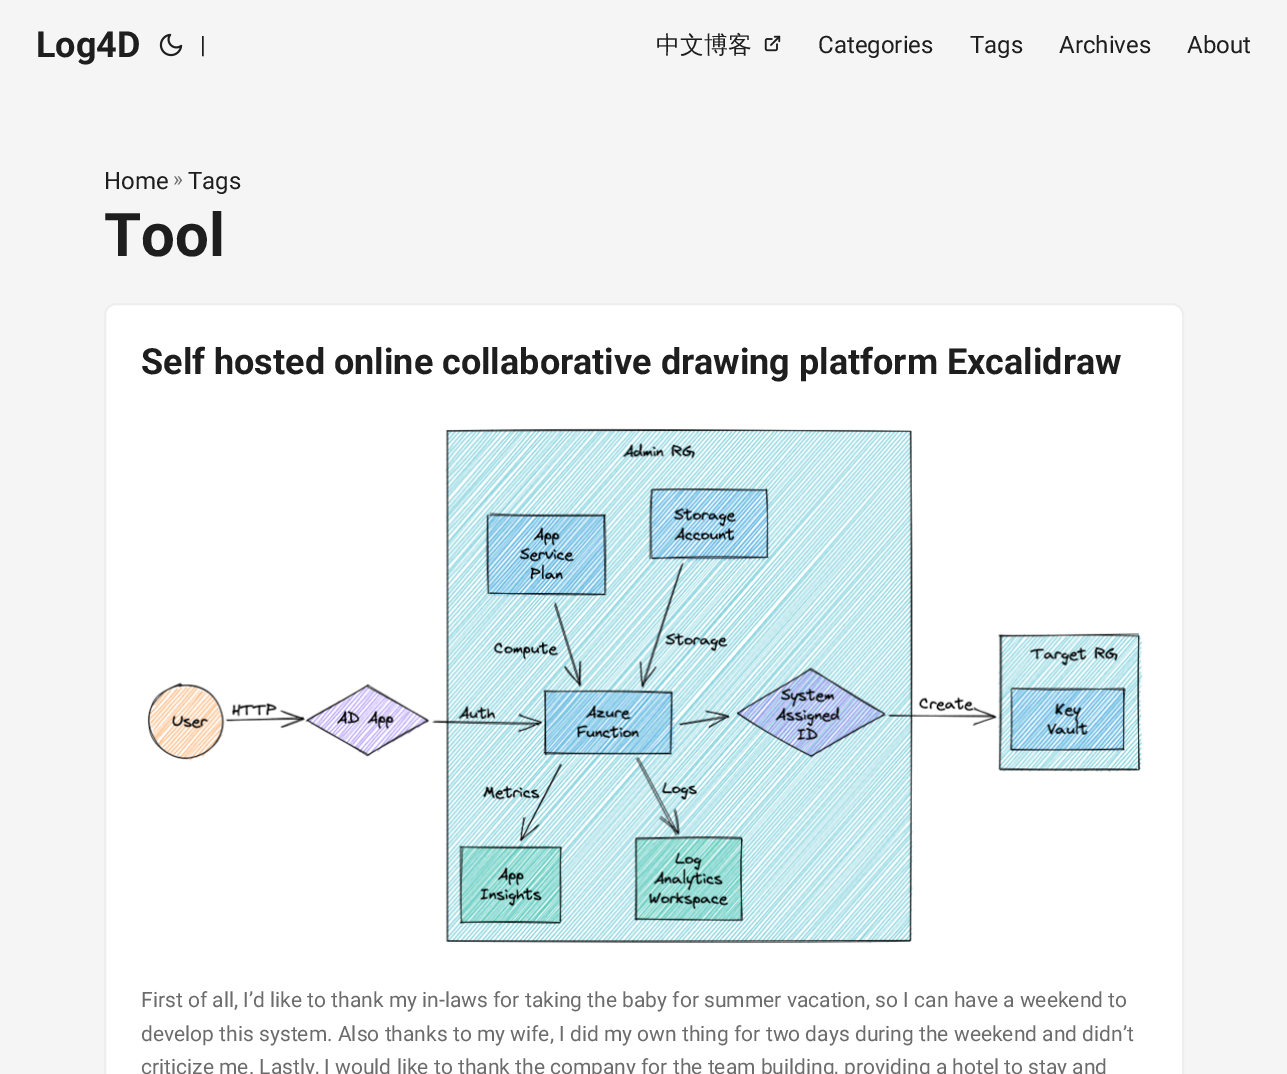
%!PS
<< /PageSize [1287 1074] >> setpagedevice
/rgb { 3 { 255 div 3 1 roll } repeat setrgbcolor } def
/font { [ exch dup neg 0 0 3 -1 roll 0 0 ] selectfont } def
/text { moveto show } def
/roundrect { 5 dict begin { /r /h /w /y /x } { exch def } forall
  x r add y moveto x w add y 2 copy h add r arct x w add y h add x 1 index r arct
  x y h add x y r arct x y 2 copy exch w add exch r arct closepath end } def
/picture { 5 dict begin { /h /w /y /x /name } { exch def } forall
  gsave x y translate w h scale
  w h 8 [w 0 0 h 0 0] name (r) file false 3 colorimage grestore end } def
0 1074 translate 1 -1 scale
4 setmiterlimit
245 245 245 rgb
0 0 1287 1074 rectfill
(img_01.rgb) 159 33 24 24 picture
(img_02.rgb) 764 35 17 17 picture
255 255 255 rgb
105 304 1078 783 11 roundrect gsave fill grestore
238 238 238 rgb
2 setlinewidth
stroke
(img_03.rgb) 147 428 996 516 picture
/Roboto-Bold 36 font
30 30 30 rgb
(Log4D) 36 57 text
/Roboto-Regular 24 font
(|) 200 53 text
/WenQuanYiZenHei-Medium 24 font
(中文博客) 656 53 text
/Roboto-Regular 24 font
(Categories) 818 53 text
(Tags) 970 53 text
(Archives) 1059 53 text
(About) 1187 53 text
(Home) 104 189 text
/Roboto-Regular 21 font
108 108 108 rgb
(») 173 186 text
/Roboto-Regular 24 font
30 30 30 rgb
(Tags) 188 189 text
/Roboto-Bold 60 font
(Tool) 104 256 text
/Roboto-Bold 36 font
(Self hosted online collaborative drawing platform Excalidraw) 141 374 text
/Roboto-Regular 21 font
108 108 108 rgb
(First of all, I’d like to thank my in-laws for taking the baby for summer vacation, so I can have a weekend to) 141 1007 text
(develop this system. Also thanks to my wife, I did my own thing for two days during the weekend and didn’t) 141 1041 text
(criticize me. Lastly, I would like to thank the company for the team building, providing a hotel to stay and) 141 1074 text
showpage
